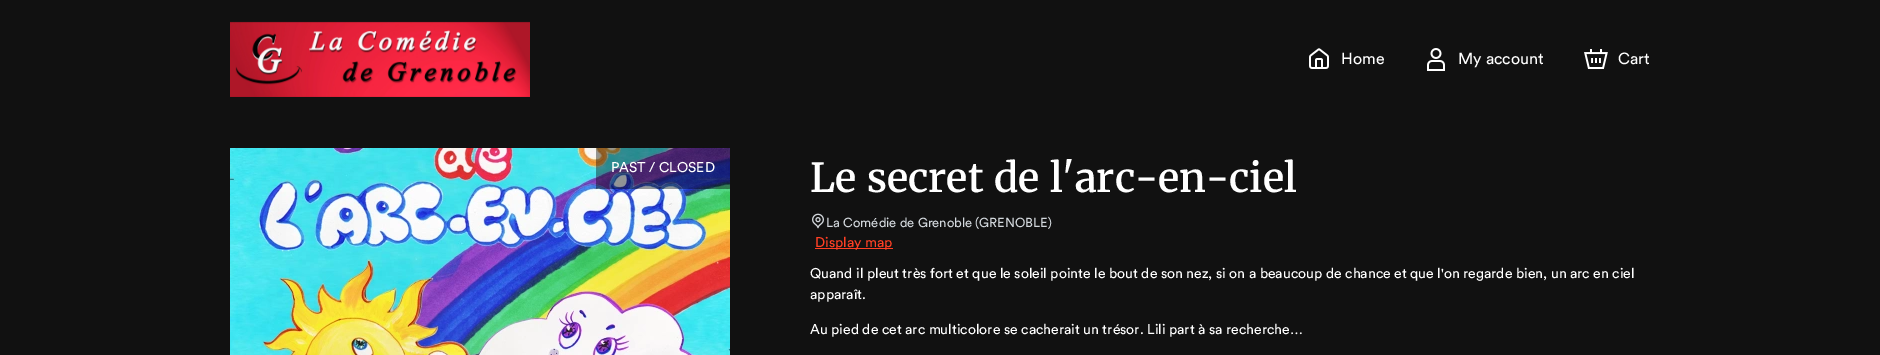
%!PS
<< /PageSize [1880 355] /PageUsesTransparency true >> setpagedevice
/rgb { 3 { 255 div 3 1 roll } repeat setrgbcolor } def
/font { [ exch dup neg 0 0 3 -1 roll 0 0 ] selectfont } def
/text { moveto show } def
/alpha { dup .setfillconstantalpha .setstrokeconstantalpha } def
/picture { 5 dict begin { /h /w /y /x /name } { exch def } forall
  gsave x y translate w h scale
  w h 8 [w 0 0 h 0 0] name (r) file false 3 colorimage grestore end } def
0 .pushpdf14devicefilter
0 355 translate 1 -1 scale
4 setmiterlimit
17 17 17 rgb
0 0 1880 355 rectfill
(img_01.rgb) 230 21 300 76 picture
(img_02.rgb) 1309 48 20 21 picture
(img_03.rgb) 1427 48 18 23 picture
(img_04.rgb) 1584 49 24 20 picture
(img_05.rgb) 230 148 500 207 picture
0.4 alpha
0 0 0 rgb
596 148 134 41 rectfill
1 alpha
(img_06.rgb) 812 213 12 16 picture
255 64 36 rgb
815 248 78 1 rectfill
/Circular-Regular 16 font
255 255 255 rgb
(Home) 1341 64 text
(My account) 1458 64 text
(Cart) 1618 64 text
/Circular-Regular 14 font
(PAST / CLOSED) 611 172 text
/Merriweather-SemiBold 40 font
810 192 moveto 1 0 32 (Le secret de l'arc-en-ciel) widthshow
/Circular-Regular 13 font
210 215 220 rgb
(La Comédie de Grenoble \(GRENOBLE\)) 826 227 text
/Circular-Regular 14 font
255 64 36 rgb
(Display map) 815 247 text
255 255 255 rgb
(Quand il pleut très fort et que le soleil pointe le bout de son nez, si on a beaucoup de chance et que l'on regarde bien, un arc en ciel) 810 278 text
(apparaît.) 810 299 text
(Au pied de cet arc multicolore se cacherait un trésor. Lili part à sa recherche…) 810 334 text
.poppdf14devicefilter showpage
